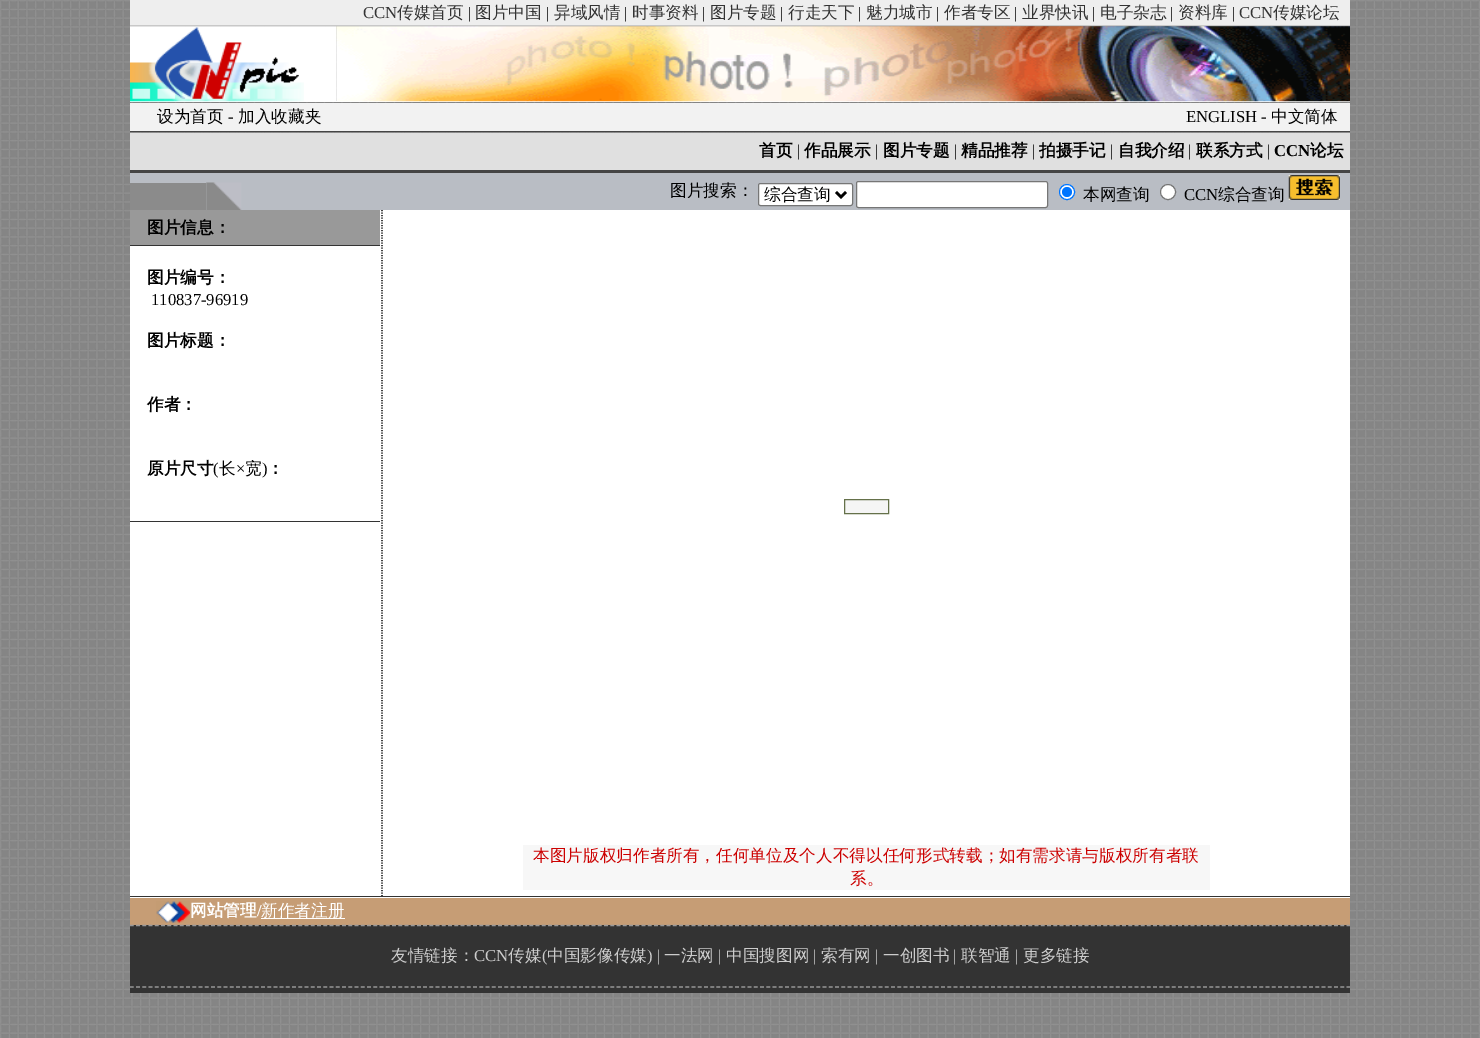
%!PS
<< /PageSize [1480 1038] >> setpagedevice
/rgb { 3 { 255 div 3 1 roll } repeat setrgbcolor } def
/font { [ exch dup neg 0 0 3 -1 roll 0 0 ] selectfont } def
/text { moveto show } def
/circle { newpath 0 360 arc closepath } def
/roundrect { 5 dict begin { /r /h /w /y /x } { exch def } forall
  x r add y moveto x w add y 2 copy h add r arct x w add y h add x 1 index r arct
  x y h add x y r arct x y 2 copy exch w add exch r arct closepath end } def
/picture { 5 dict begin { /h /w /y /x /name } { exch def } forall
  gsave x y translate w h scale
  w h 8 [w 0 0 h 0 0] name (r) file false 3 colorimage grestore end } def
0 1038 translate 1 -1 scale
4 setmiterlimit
255 255 255 rgb
0 0 1480 1038 rectfill
(img_01.rgb) 0 0 1480 1038 picture
238 238 238 rgb
130 0 1220 25 rectfill
200 200 200 rgb
130 25 1220 1 rectfill
255 255 255 rgb
130 101 1220 1 rectfill
(img_02.rgb) 130 26 207 76 picture
(img_03.rgb) 336 26 1014 76 picture
242 242 242 rgb
130 103 1220 28 rectfill
69 69 69 rgb
130 131 1220 1 rectfill
224 224 224 rgb
130 133 1220 37 rectfill
69 69 69 rgb
130 170 1220 3 rectfill
185 189 196 rgb
130 173 1220 37 rectfill
139 139 139 rgb
130 183 76 27 rectfill
(img_04.rgb) 206 182 36 28 picture
255 255 255 rgb
758.5 183.5 94 22 2 roundrect gsave fill grestore
118 118 118 rgb
stroke
0 0 0 rgb
2.5 setlinewidth
836 192 moveto 5 5 rlineto 5 -5 rlineto stroke
255 255 255 rgb
856.5 181.5 191 26 2 roundrect gsave fill grestore
118 118 118 rgb
1 setlinewidth
stroke
255 255 255 rgb
1067 192 7.5 circle gsave fill grestore
0 117 255 rgb
stroke
1067 192 5 circle fill
255 255 255 rgb
1168 192 7.5 circle gsave fill grestore
118 118 118 rgb
stroke
(img_05.rgb) 1288 175 52 25 picture
255 255 255 rgb
130 210 1220 688 rectfill
51 51 51 rgb
130 896 1220 1 rectfill
0 0 0 rgb
1.2 setlinewidth
[1.25 1.25] 0 setdash
382 210 moveto 0 686 rlineto stroke
153 153 153 rgb
130 210 250 35 rectfill
51 51 51 rgb
130 245 250 1 rectfill
130 521 250 1 rectfill
245 245 245 rgb
844.5 499.5 moveto 44 0 rlineto 0 14 rlineto -44 0 rlineto closepath gsave fill grestore
101 113 74 rgb
1 setlinewidth
[] 0 setdash
stroke
247 247 247 rgb
523 845 687 45 rectfill
198 157 117 rgb
130 898 1220 27 rectfill
(img_06.rgb) 156 901 34 22 picture
255 255 255 rgb
261 918 84 1 rectfill
51 51 51 rgb
130 925 1220 68 rectfill
153 153 153 rgb
1.2 setlinewidth
[3.75 2.49] 0 setdash
130 925.5 moveto 1220 0 rlineto stroke
130 987 moveto 1220 0 rlineto stroke
/LiberationSerif-Regular 16.65 font
51 51 51 rgb
(CCN) 363 18 text
/WenQuanYiZenHei-Medium 16.65 font
(传媒首页) 397 18 text
/LiberationSerif-Regular 16 font
0 0 0 rgb
(|) 468 18 text
/WenQuanYiZenHei-Medium 16.65 font
51 51 51 rgb
(图片中国) 475 18 text
/LiberationSerif-Regular 16 font
0 0 0 rgb
(|) 546 18 text
/WenQuanYiZenHei-Medium 16.65 font
51 51 51 rgb
(异域风情) 554 18 text
/LiberationSerif-Regular 16 font
0 0 0 rgb
(|) 624 18 text
/WenQuanYiZenHei-Medium 16.65 font
51 51 51 rgb
(时事资料) 632 18 text
/LiberationSerif-Regular 16 font
0 0 0 rgb
(|) 702 18 text
/WenQuanYiZenHei-Medium 16.65 font
51 51 51 rgb
(图片专题) 710 18 text
/LiberationSerif-Regular 16 font
0 0 0 rgb
(|) 780 18 text
/WenQuanYiZenHei-Medium 16.65 font
51 51 51 rgb
(行走天下) 788 18 text
/LiberationSerif-Regular 16 font
0 0 0 rgb
(|) 858 18 text
/WenQuanYiZenHei-Medium 16.65 font
51 51 51 rgb
(魅力城市) 866 18 text
/LiberationSerif-Regular 16 font
0 0 0 rgb
(|) 936 18 text
/WenQuanYiZenHei-Medium 16.65 font
51 51 51 rgb
(作者专区) 944 18 text
/LiberationSerif-Regular 16 font
0 0 0 rgb
(|) 1014 18 text
/WenQuanYiZenHei-Medium 16.65 font
51 51 51 rgb
(业界快讯) 1022 18 text
/LiberationSerif-Regular 16 font
0 0 0 rgb
(|) 1092 18 text
/WenQuanYiZenHei-Medium 16.65 font
51 51 51 rgb
(电子杂志) 1100 18 text
/LiberationSerif-Regular 16 font
0 0 0 rgb
(|) 1170 18 text
/WenQuanYiZenHei-Medium 16.65 font
51 51 51 rgb
(资料库) 1178 18 text
/LiberationSerif-Regular 16 font
0 0 0 rgb
(|) 1232 18 text
/LiberationSerif-Regular 16.65 font
51 51 51 rgb
(CCN) 1239 18 text
/WenQuanYiZenHei-Medium 16.65 font
(传媒论坛) 1273 18 text
0 0 0 rgb
(设为首页) 157 122 text
/LiberationSerif-Regular 16.65 font
(-) 228 122 text
/WenQuanYiZenHei-Medium 16.65 font
(加入收藏夹) 238 122 text
/LiberationSerif-Regular 16.65 font
(ENGLISH -) 1186 122 text
/WenQuanYiZenHei-Medium 16.65 font
(中文简体) 1271 122 text
/WenQuanYiZenHei-Bold 16.65 font
(首页) 759 156 text
/LiberationSerif-Regular 16.65 font
(|) 797 156 text
/WenQuanYiZenHei-Bold 16.65 font
(作品展示) 804 156 text
/LiberationSerif-Regular 16.65 font
(|) 875 156 text
/WenQuanYiZenHei-Bold 16.65 font
(图片专题) 883 156 text
/LiberationSerif-Regular 16.65 font
(|) 954 156 text
/WenQuanYiZenHei-Bold 16.65 font
(精品推荐) 961 156 text
/LiberationSerif-Regular 16.65 font
(|) 1032 156 text
/WenQuanYiZenHei-Bold 16.65 font
(拍摄手记) 1039 156 text
/LiberationSerif-Regular 16.65 font
(|) 1110 156 text
/WenQuanYiZenHei-Bold 16.65 font
(自我介绍) 1118 156 text
/LiberationSerif-Regular 16.65 font
(|) 1188 156 text
/WenQuanYiZenHei-Bold 16.65 font
(联系方式) 1196 156 text
/LiberationSerif-Regular 16.65 font
(|) 1267 156 text
/LiberationSerif-Bold 16.65 font
(CCN) 1274 156 text
/WenQuanYiZenHei-Bold 16.65 font
(论坛) 1310 156 text
/WenQuanYiZenHei-Medium 16.65 font
(图片搜索：) 670 196 text
(综合查询) 764 200 text
(本网查询) 1083 200 text
/LiberationSerif-Regular 16.65 font
(CCN) 1184 200 text
/WenQuanYiZenHei-Medium 16.65 font
(综合查询) 1218 200 text
/WenQuanYiZenHei-Bold 16.65 font
(图片信息：) 147 233 text
(图片编号：) 147 283 text
/LiberationSerif-Regular 16.65 font
(110837-96919) 151 305 text
/WenQuanYiZenHei-Bold 16.65 font
(图片标题：) 147 346 text
(作者：) 147 410 text
(原片尺寸) 147 474 text
/LiberationSerif-Regular 16.65 font
(\() 213 474 text
/WenQuanYiZenHei-Medium 16.65 font
(长) 219 474 text
/LiberationSerif-Regular 16.65 font
(×) 236 474 text
/WenQuanYiZenHei-Medium 16.65 font
(宽) 245 474 text
/LiberationSerif-Regular 16.65 font
(\)) 262 474 text
/WenQuanYiZenHei-Bold 16.65 font
(：) 267 474 text
/WenQuanYiZenHei-Medium 16.65 font
204 0 0 rgb
(本图片版权归作者所有，任何单位及个人不得以任何形式转载；如有需求请与版权所有者联) 533 861 text
(系。) 850 884 text
/WenQuanYiZenHei-Bold 16.65 font
255 255 255 rgb
(网站管理) 190 916 text
/LiberationSerif-Bold 16.65 font
(/) 257 916 text
/WenQuanYiZenHei-Medium 16.65 font
(新作者注册) 261 916 text
204 204 204 rgb
(友情链接：) 391 961 text
/LiberationSerif-Regular 16.65 font
(CCN) 474 961 text
/WenQuanYiZenHei-Medium 16.65 font
(传媒) 508 961 text
/LiberationSerif-Regular 16.65 font
(\() 542 961 text
/WenQuanYiZenHei-Medium 16.65 font
(中国影像传媒) 547 961 text
/LiberationSerif-Regular 16.65 font
(\) |) 647 961 text
/WenQuanYiZenHei-Medium 16.65 font
(一法网) 664 961 text
/LiberationSerif-Regular 16.65 font
(|) 718 961 text
/WenQuanYiZenHei-Medium 16.65 font
(中国搜图网) 726 961 text
/LiberationSerif-Regular 16.65 font
(|) 813 961 text
/WenQuanYiZenHei-Medium 16.65 font
(索有网) 821 961 text
/LiberationSerif-Regular 16.65 font
(|) 875 961 text
/WenQuanYiZenHei-Medium 16.65 font
(一创图书) 883 961 text
/LiberationSerif-Regular 16.65 font
(|) 953 961 text
/WenQuanYiZenHei-Medium 16.65 font
(联智通) 961 961 text
/LiberationSerif-Regular 16.65 font
(|) 1015 961 text
/WenQuanYiZenHei-Medium 16.65 font
(更多链接) 1023 961 text
showpage
